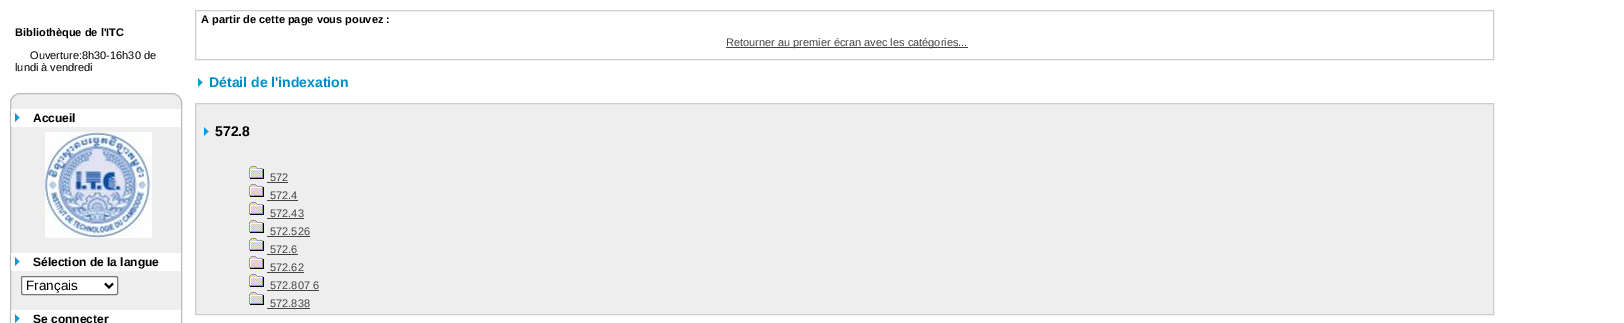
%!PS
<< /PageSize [1624 323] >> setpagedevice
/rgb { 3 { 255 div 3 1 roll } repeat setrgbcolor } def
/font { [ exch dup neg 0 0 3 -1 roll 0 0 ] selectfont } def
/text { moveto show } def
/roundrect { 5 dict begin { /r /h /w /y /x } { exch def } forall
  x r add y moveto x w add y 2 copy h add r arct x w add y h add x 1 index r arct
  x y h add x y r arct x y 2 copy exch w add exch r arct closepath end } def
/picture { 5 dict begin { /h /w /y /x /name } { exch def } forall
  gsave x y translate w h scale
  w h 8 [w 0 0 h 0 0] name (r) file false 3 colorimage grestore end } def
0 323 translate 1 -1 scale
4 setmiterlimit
255 255 255 rgb
0 0 1624 323 rectfill
204 204 204 rgb
195.5 10.5 1298 49 rectstroke
68 68 68 rgb
726 47 242 1 rectfill
(img_01.rgb) 198 78 5 9 picture
238 238 238 rgb
195.5 103.5 moveto 1298 0 rlineto 0 211 rlineto -1298 0 rlineto closepath gsave fill grestore
204 204 204 rgb
stroke
(img_02.rgb) 204 127 5 9 picture
(img_03.rgb) 249 166 15 13 picture
68 68 68 rgb
267 182 21 1 rectfill
(img_03.rgb) 249 184 15 13 picture
267 200 31 1 rectfill
(img_03.rgb) 249 202 15 13 picture
267 218 37 1 rectfill
(img_03.rgb) 249 220 15 13 picture
267 236 43 1 rectfill
(img_03.rgb) 249 238 15 13 picture
267 254 31 1 rectfill
(img_03.rgb) 249 256 15 13 picture
267 272 37 1 rectfill
(img_03.rgb) 249 274 15 13 picture
267 290 52 1 rectfill
(img_03.rgb) 249 292 15 13 picture
267 308 43 1 rectfill
238 238 238 rgb
10.5 93.5 171 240 9.5 roundrect gsave fill grestore
187 187 187 rgb
stroke
255 255 255 rgb
11 109 170 18 rectfill
(img_01.rgb) 15 113 5 9 picture
(img_04.rgb) 45 132 107 106 picture
11 253 170 18 rectfill
(img_01.rgb) 15 257 5 9 picture
21.5 276.5 96 18 1.5 roundrect gsave fill grestore
118 118 118 rgb
stroke
0 0 0 rgb
2 setlinewidth
105 283.5 moveto 4 4 rlineto 4 -4 rlineto stroke
255 255 255 rgb
11 310 170 13 rectfill
(img_01.rgb) 15 314 5 9 picture
/LiberationSans-Bold 11 font
0 0 0 rgb
(Bibliothèque de l'ITC) 15 36 text
/LiberationSans-Regular 11 font
(Ouverture:8h30-16h30 de) 30 59 text
(lundi à vendredi) 15 71 text
/LiberationSans-Bold 11 font
(A partir de cette page vous pouvez :) 201 23 text
/LiberationSans-Regular 11 font
68 68 68 rgb
(Retourner au premier écran avec les catégories...) 726 46 text
/LiberationSans-Bold 14 font
0 140 198 rgb
(Détail de l'indexation) 209 87 text
0 0 0 rgb
(572.8) 215 136 text
/LiberationSans-Regular 11 font
68 68 68 rgb
(572) 270 181 text
(572.4) 270 199 text
(572.43) 270 217 text
(572.526) 270 235 text
(572.6) 270 253 text
(572.62) 270 271 text
(572.807 6) 270 289 text
(572.838) 270 307 text
/LiberationSans-Bold 12 font
0 0 0 rgb
(Accueil) 33 122 text
(Sélection de la langue) 33 266 text
/LiberationSans-Regular 13.5 font
(Français) 26 290 text
/LiberationSans-Bold 12 font
(Se connecter) 33 323 text
showpage
